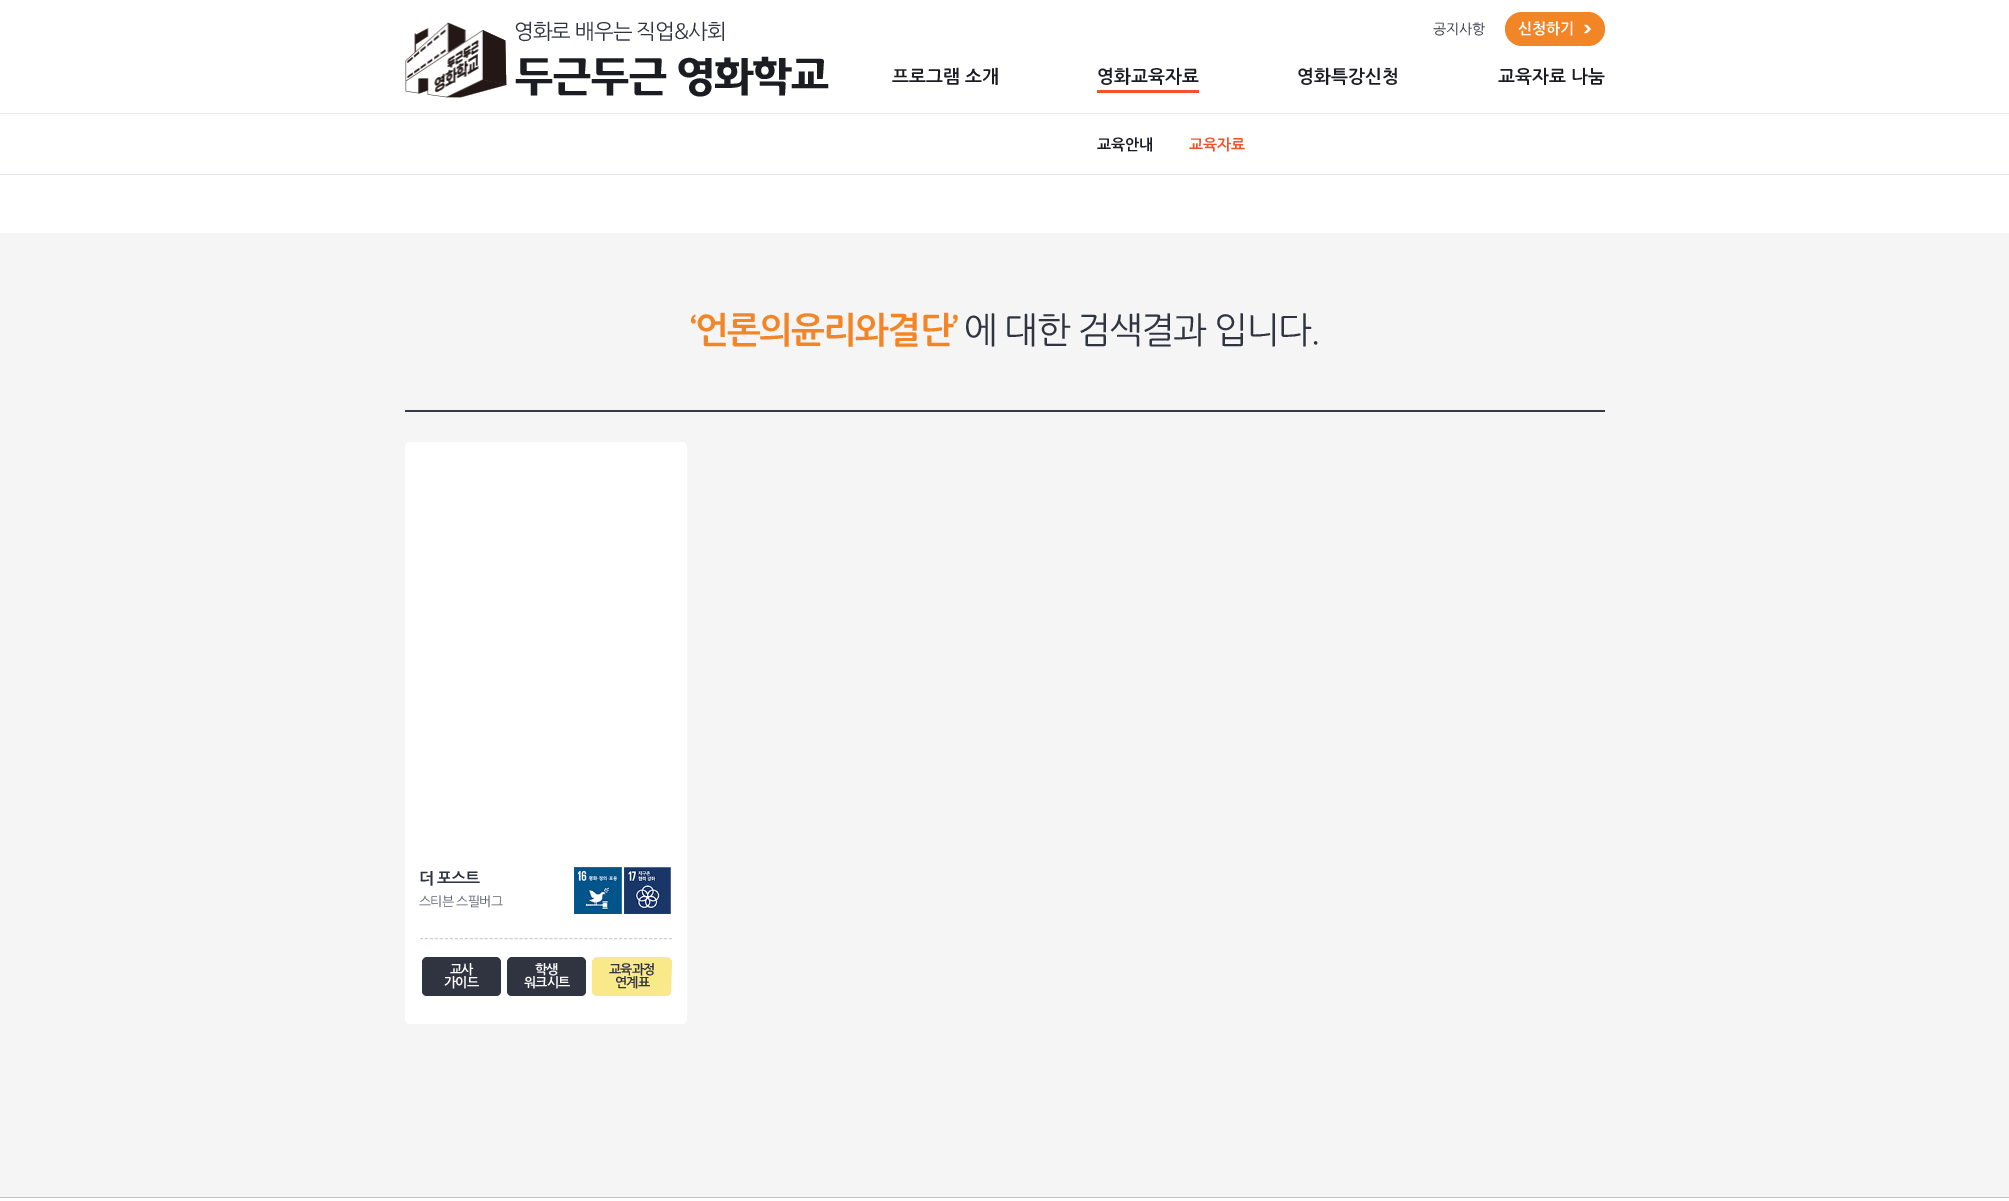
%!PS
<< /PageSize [2009 1201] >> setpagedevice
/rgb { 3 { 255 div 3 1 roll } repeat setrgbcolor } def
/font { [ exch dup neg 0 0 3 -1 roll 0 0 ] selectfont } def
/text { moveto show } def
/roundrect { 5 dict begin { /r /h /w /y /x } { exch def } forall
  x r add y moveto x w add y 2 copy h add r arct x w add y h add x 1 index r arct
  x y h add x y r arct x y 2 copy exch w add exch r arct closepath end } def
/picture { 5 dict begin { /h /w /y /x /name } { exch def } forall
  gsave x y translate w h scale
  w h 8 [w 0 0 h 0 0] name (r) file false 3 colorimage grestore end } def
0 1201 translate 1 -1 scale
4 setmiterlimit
255 255 255 rgb
0 0 2009 1201 rectfill
(img_01.rgb) 405 22 102 76 picture
242 82 46 rgb
1097 90 102 3 rectfill
228 229 237 rgb
0 174 2009 1 rectfill
242 134 39 rgb
1505 12 100 34 17 roundrect fill
(img_02.rgb) 1584 24 7 10 picture
234 235 236 rgb
0 113 2009 1 rectfill
245 245 245 rgb
0 233 2009 964 rectfill
54 58 71 rgb
405 410 1200 2 rectfill
255 255 255 rgb
405 442 282 582 5 roundrect fill
205 207 215 rgb
[3 1.98] 0 setdash
420 938.5 moveto 252 0 rlineto stroke
(img_03.rgb) 574 867 48 47 picture
(img_04.rgb) 624 867 47 47 picture
48 52 65 rgb
427 957 moveto 69 0 rlineto 3 0 5 3 5 5 rcurveto 0 29 rlineto 0 3 -2 5 -5 5 rcurveto -69 0 rlineto -3 0 -5 -2 -5 -5 rcurveto 0 -29 rlineto 0 -2 2 -5 5 -5 rcurveto closepath fill
512 957 moveto 69 0 rlineto 3 0 5 3 5 5 rcurveto 0 29 rlineto 0 3 -2 5 -5 5 rcurveto -69 0 rlineto -3 0 -5 -2 -5 -5 rcurveto 0 -29 rlineto 0 -2 2 -5 5 -5 rcurveto closepath fill
250 233 139 rgb
597 957 moveto 70 0 rlineto 2 0 5 3 5 5 rcurveto -1 29 rlineto 0 3 -2 5 -5 5 rcurveto -69 0 rlineto -2 0 -5 -2 -5 -5 rcurveto 0 -29 rlineto 0 -2 3 -5 5 -5 rcurveto closepath fill
192 194 198 rgb
0 1197 2009 1 rectfill
/NanumGothic-Regular 21 font
48 52 65 rgb
514 39 moveto -1 0 (영화로 배우는 직업&사회) ashow
/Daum-SemiBold 40 font
27 29 34 rgb
514 89 moveto -2 0 (두근두근 영화학교) ashow
/NanumGothic-Bold 18 font
(프로그램 소개) 892 83 text
(영화교육자료) 1097 83 text
/NanumGothic-Bold 15 font
(교육안내) 1097 150 text
242 82 46 rgb
(교육자료) 1189 150 text
/NanumGothic-Bold 18 font
27 29 34 rgb
(영화특강신청) 1297 83 text
(교육자료 나눔) 1498 83 text
/NanumGothic-Regular 14 font
48 52 65 rgb
(공지사항) 1433 34 text
/NanumGothic-Bold 15 font
255 255 255 rgb
(신청하기) 1518 34 text
/NanumGothic-Bold 36 font
242 134 39 rgb
690 343 moveto -1.75 0 (‘언론의윤리와결단’) ashow
/NanumGothic-Regular 36 font
48 52 65 rgb
964 343 moveto -1.75 0 (에 대한 검색결과 입니다.) ashow
gsave
419.5 871 moveto 96.5 0 rlineto 0 15 rlineto -96.5 0 rlineto closepath clip newpath
/NanumGothic-Bold 16 font
419 884 moveto -1 0 (더 포스트) ashow
grestore
/NanumGothic-Regular 13 font
92 97 111 rgb
419 906 moveto -0.75 0 (스티븐 스필버그) ashow
/NanumGothic-Bold 13 font
255 255 255 rgb
450 974 moveto -0.75 0 (교사) ashow
444 987 moveto -0.75 0 (가이드) ashow
535 974 moveto -0.75 0 (학생) ashow
524 987 moveto -0.75 0 (워크시트) ashow
48 52 65 rgb
609 974 moveto -0.75 0 (교육과정) ashow
615 987 moveto -0.75 0 (연계표) ashow
showpage
